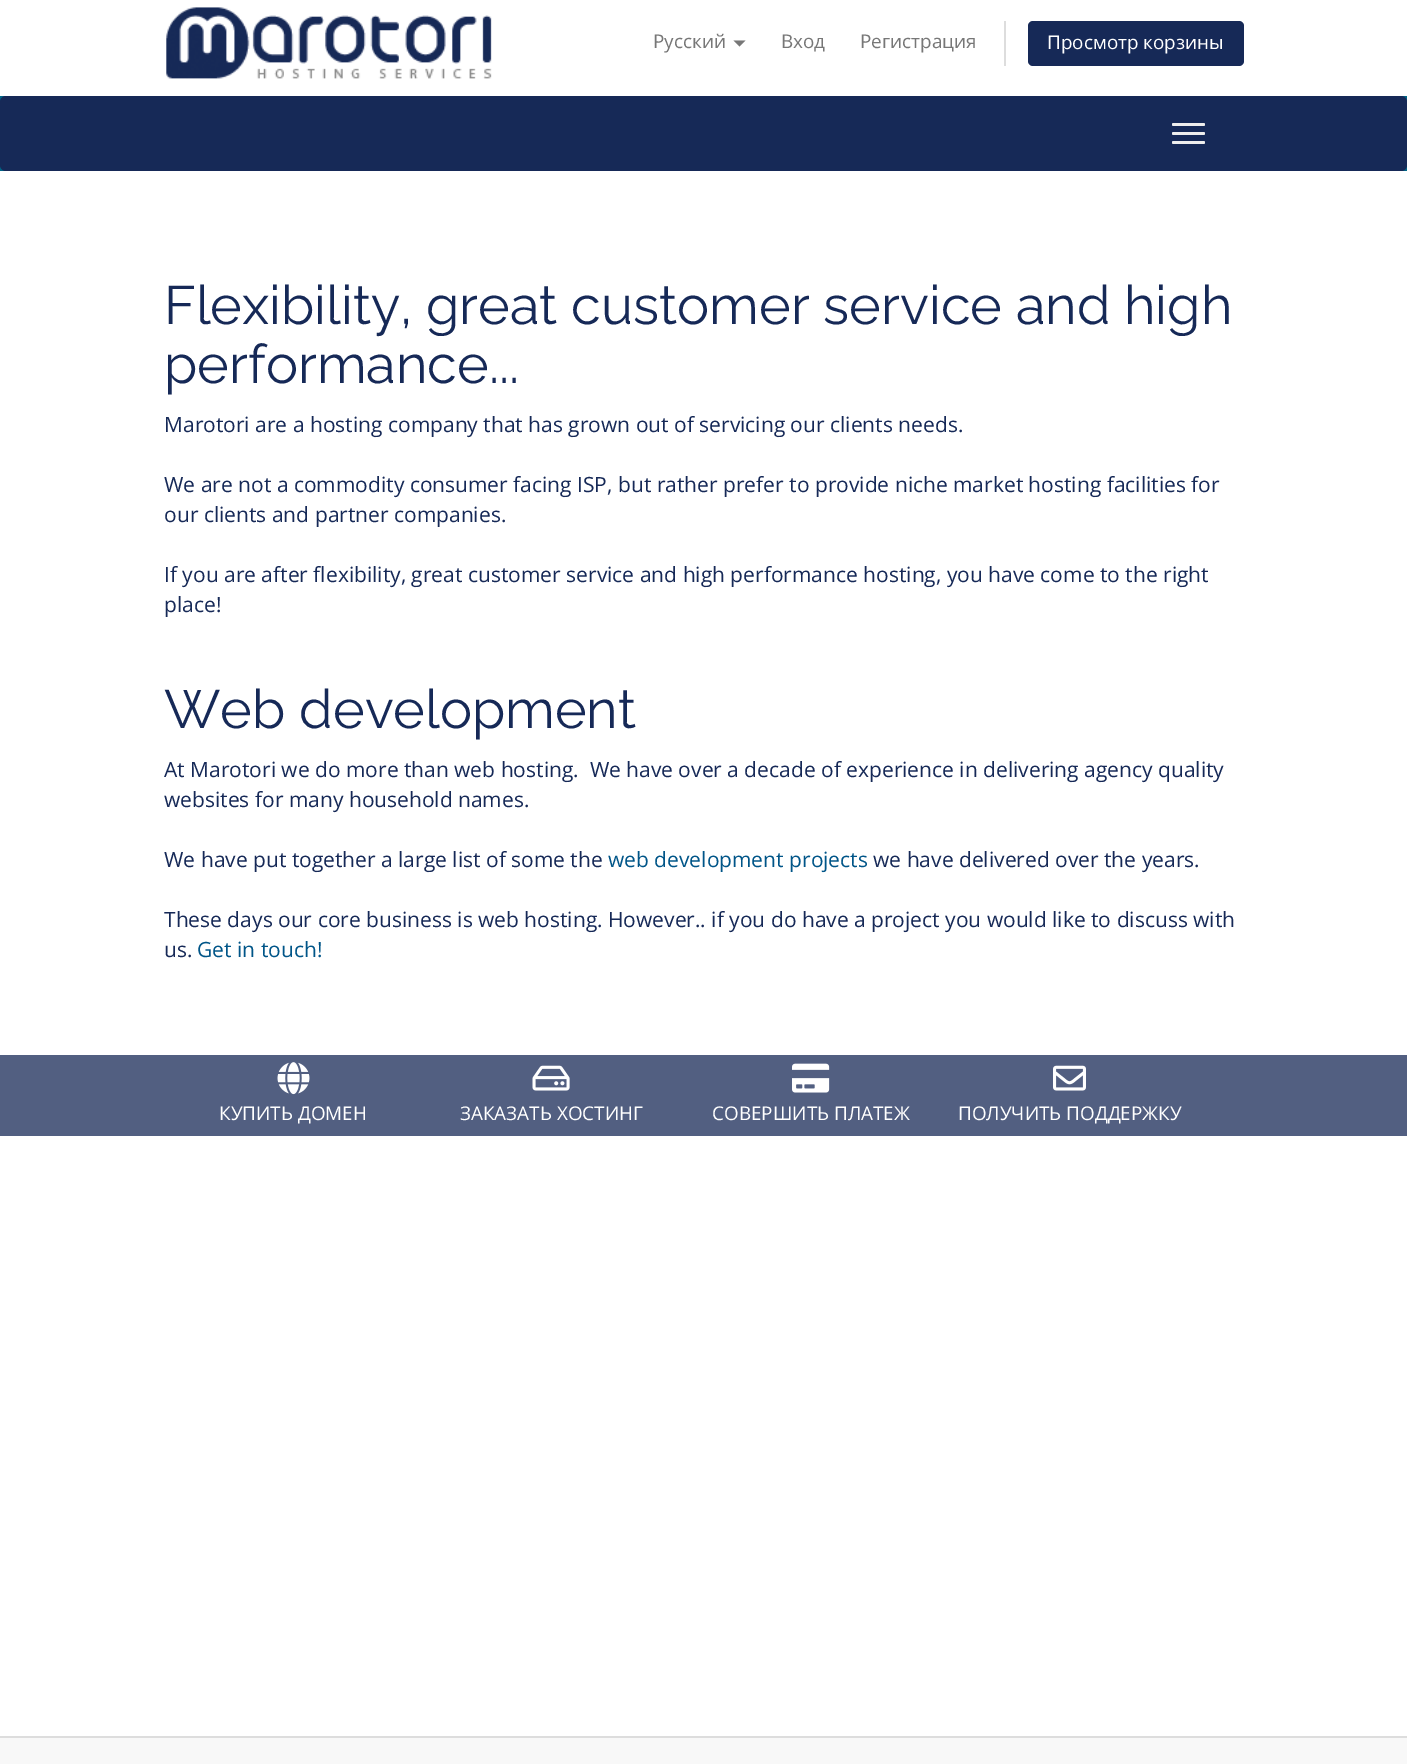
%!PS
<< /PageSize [1407 1764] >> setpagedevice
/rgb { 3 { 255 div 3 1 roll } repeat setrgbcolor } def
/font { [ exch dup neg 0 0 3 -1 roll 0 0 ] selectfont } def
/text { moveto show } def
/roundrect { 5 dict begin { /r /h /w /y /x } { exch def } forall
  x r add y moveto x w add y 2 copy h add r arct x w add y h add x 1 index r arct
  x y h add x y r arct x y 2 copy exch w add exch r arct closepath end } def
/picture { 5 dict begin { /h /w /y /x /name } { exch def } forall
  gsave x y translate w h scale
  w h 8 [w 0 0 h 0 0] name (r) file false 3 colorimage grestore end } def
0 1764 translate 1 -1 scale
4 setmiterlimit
248 248 248 rgb
0 0 1407 1764 rectfill
255 255 255 rgb
0 0 1407 96 rectfill
(img_01.rgb) 166 7 326 72 picture
119 119 119 rgb
733.5 40.5 moveto 12 0 rlineto -6 6 rlineto closepath fill
221 221 221 rgb
1004 21 2 45 rectfill
22 41 87 rgb
1028 21 216 45 5 roundrect fill
0 102 135 rgb
0 96 1407 75 rectfill
22 41 87 rgb
0 96 1407 75 6 roundrect fill
238 238 238 rgb
1172 123 33 3 1.5 roundrect fill
1172 132 33 3 1.5 roundrect fill
1172 141 33 3 1.5 roundrect fill
255 255 255 rgb
0 171 1407 884 rectfill
82 95 129 rgb
0 1055 1407 81 rectfill
(img_02.rgb) 277 1062 33 33 picture
(img_03.rgb) 532 1065 38 26 picture
(img_04.rgb) 792 1063 38 30 picture
(img_05.rgb) 1053 1065 33 26 picture
255 255 255 rgb
0 1136 1407 600 rectfill
221 221 221 rgb
0 1736 1407 2 rectfill
/OpenSans-Regular 18.9 font
119 119 119 rgb
(Русский) 653 48 text
(Вход) 781 48 text
(Регистрация) 860 48 text
255 255 255 rgb
(Просмотр корзины) 1047 49 text
/Raleway-Regular 54 font
22 41 87 rgb
(Flexibility, great customer service and high) 164 324 text
(performance...) 164 383 text
/OpenSans-Regular 21 font
(Marotori are a hosting company that has grown out of servicing our clients needs.) 164 432 text
(We are not a commodity consumer facing ISP, but rather prefer to provide niche market hosting facilities for) 164 492 text
(our clients and partner companies.) 164 522 text
(If you are after flexibility, great customer service and high performance hosting, you have come to the right) 164 582 text
(place!) 164 612 text
/Raleway-Regular 54 font
(Web development) 164 728 text
/OpenSans-Regular 21 font
(At Marotori we do more than web hosting.  We have over a decade of experience in delivering agency quality) 164 777 text
(websites for many household names.) 164 807 text
(We have put together a large list of some the) 164 867 text
0 85 136 rgb
(web development projects) 608 867 text
22 41 87 rgb
(we have delivered over the years.) 873 867 text
(These days our core business is web hosting. However.. if you do have a project you would like to discuss with) 164 927 text
(us.) 164 957 text
0 85 136 rgb
(Get in touch!) 197 957 text
/OpenSans-Regular 18.9 font
255 255 255 rgb
(КУПИТЬ ДОМЕН) 219 1120 text
(ЗАКАЗАТЬ ХОСТИНГ) 460 1120 text
(СОВЕРШИТЬ ПЛАТЕЖ) 712 1120 text
(ПОЛУЧИТЬ ПОДДЕРЖКУ) 958 1120 text
showpage
